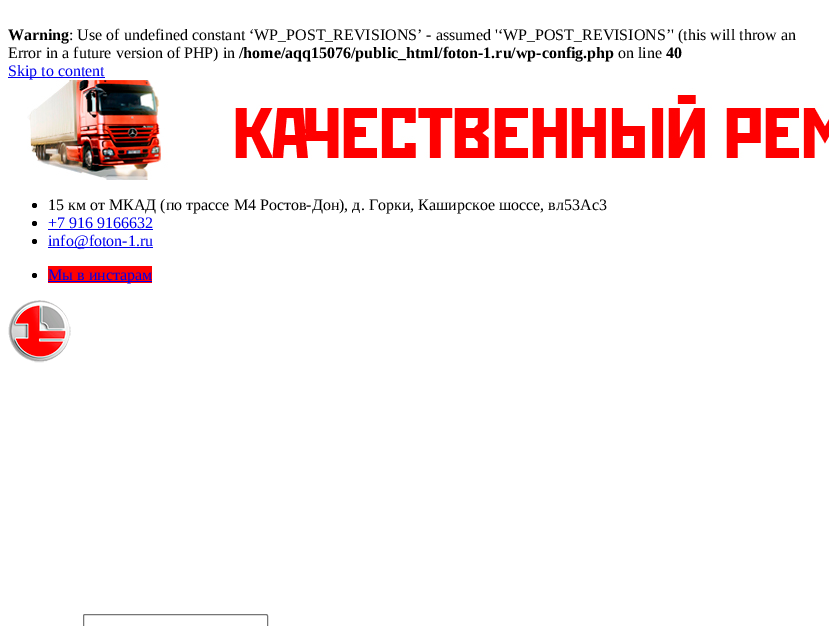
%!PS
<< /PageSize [829 626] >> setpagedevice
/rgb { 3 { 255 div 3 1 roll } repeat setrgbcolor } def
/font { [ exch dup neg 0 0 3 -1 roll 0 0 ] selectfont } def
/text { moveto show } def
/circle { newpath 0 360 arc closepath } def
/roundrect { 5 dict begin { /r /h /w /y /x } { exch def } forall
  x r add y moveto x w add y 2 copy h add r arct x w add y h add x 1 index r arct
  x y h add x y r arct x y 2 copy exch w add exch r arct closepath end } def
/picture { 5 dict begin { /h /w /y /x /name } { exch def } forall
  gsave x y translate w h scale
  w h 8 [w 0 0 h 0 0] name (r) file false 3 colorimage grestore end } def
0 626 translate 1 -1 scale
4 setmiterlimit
255 255 255 rgb
0 0 829 626 rectfill
0 0 238 rgb
8 77 97 1 rectfill
(img_01.rgb) 27 80 802 100 picture
0 0 0 rgb
34.5 205.5 2.5 circle fill
34.5 223.5 2.5 circle fill
0 0 238 rgb
48 229 105 1 rectfill
0 0 0 rgb
34.5 241.5 2.5 circle fill
0 0 238 rgb
48 247 105 1 rectfill
0 0 0 rgb
34.5 275.5 2.5 circle fill
254 1 1 rgb
48 266 104 17 rectfill
0 0 238 rgb
48 281 104 1 rectfill
(img_02.rgb) 8 300 63 63 picture
118 118 118 rgb
83.5 614.5 184 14 1.5 roundrect stroke
/LiberationSerif-Bold 16 font
0 0 0 rgb
(Warning) 8 40 text
/LiberationSerif-Regular 16 font
(: Use of undefined constant ‘WP_POST_REVISIONS’ - assumed '‘WP_POST_REVISIONS’' \(this will throw an) 69 40 text
(Error in a future version of PHP\) in) 8 58 text
/LiberationSerif-Bold 16 font
(/home/aqq15076/public_html/foton-1.ru/wp-config.php) 239 58 text
/LiberationSerif-Regular 16 font
(on line) 618 58 text
/LiberationSerif-Bold 16 font
(40) 666 58 text
/LiberationSerif-Regular 16 font
0 0 238 rgb
(Skip to content) 8 76 text
0 0 0 rgb
(15 км от МКАД \(по трассе М4 Ростов-Дон\), д. Горки, Каширское шоссе, вл53Ас3) 48 210 text
0 0 238 rgb
(+7 916 9166632) 48 228 text
(info@foton-1.ru) 48 246 text
(Мы в инстарам) 48 280 text
showpage
